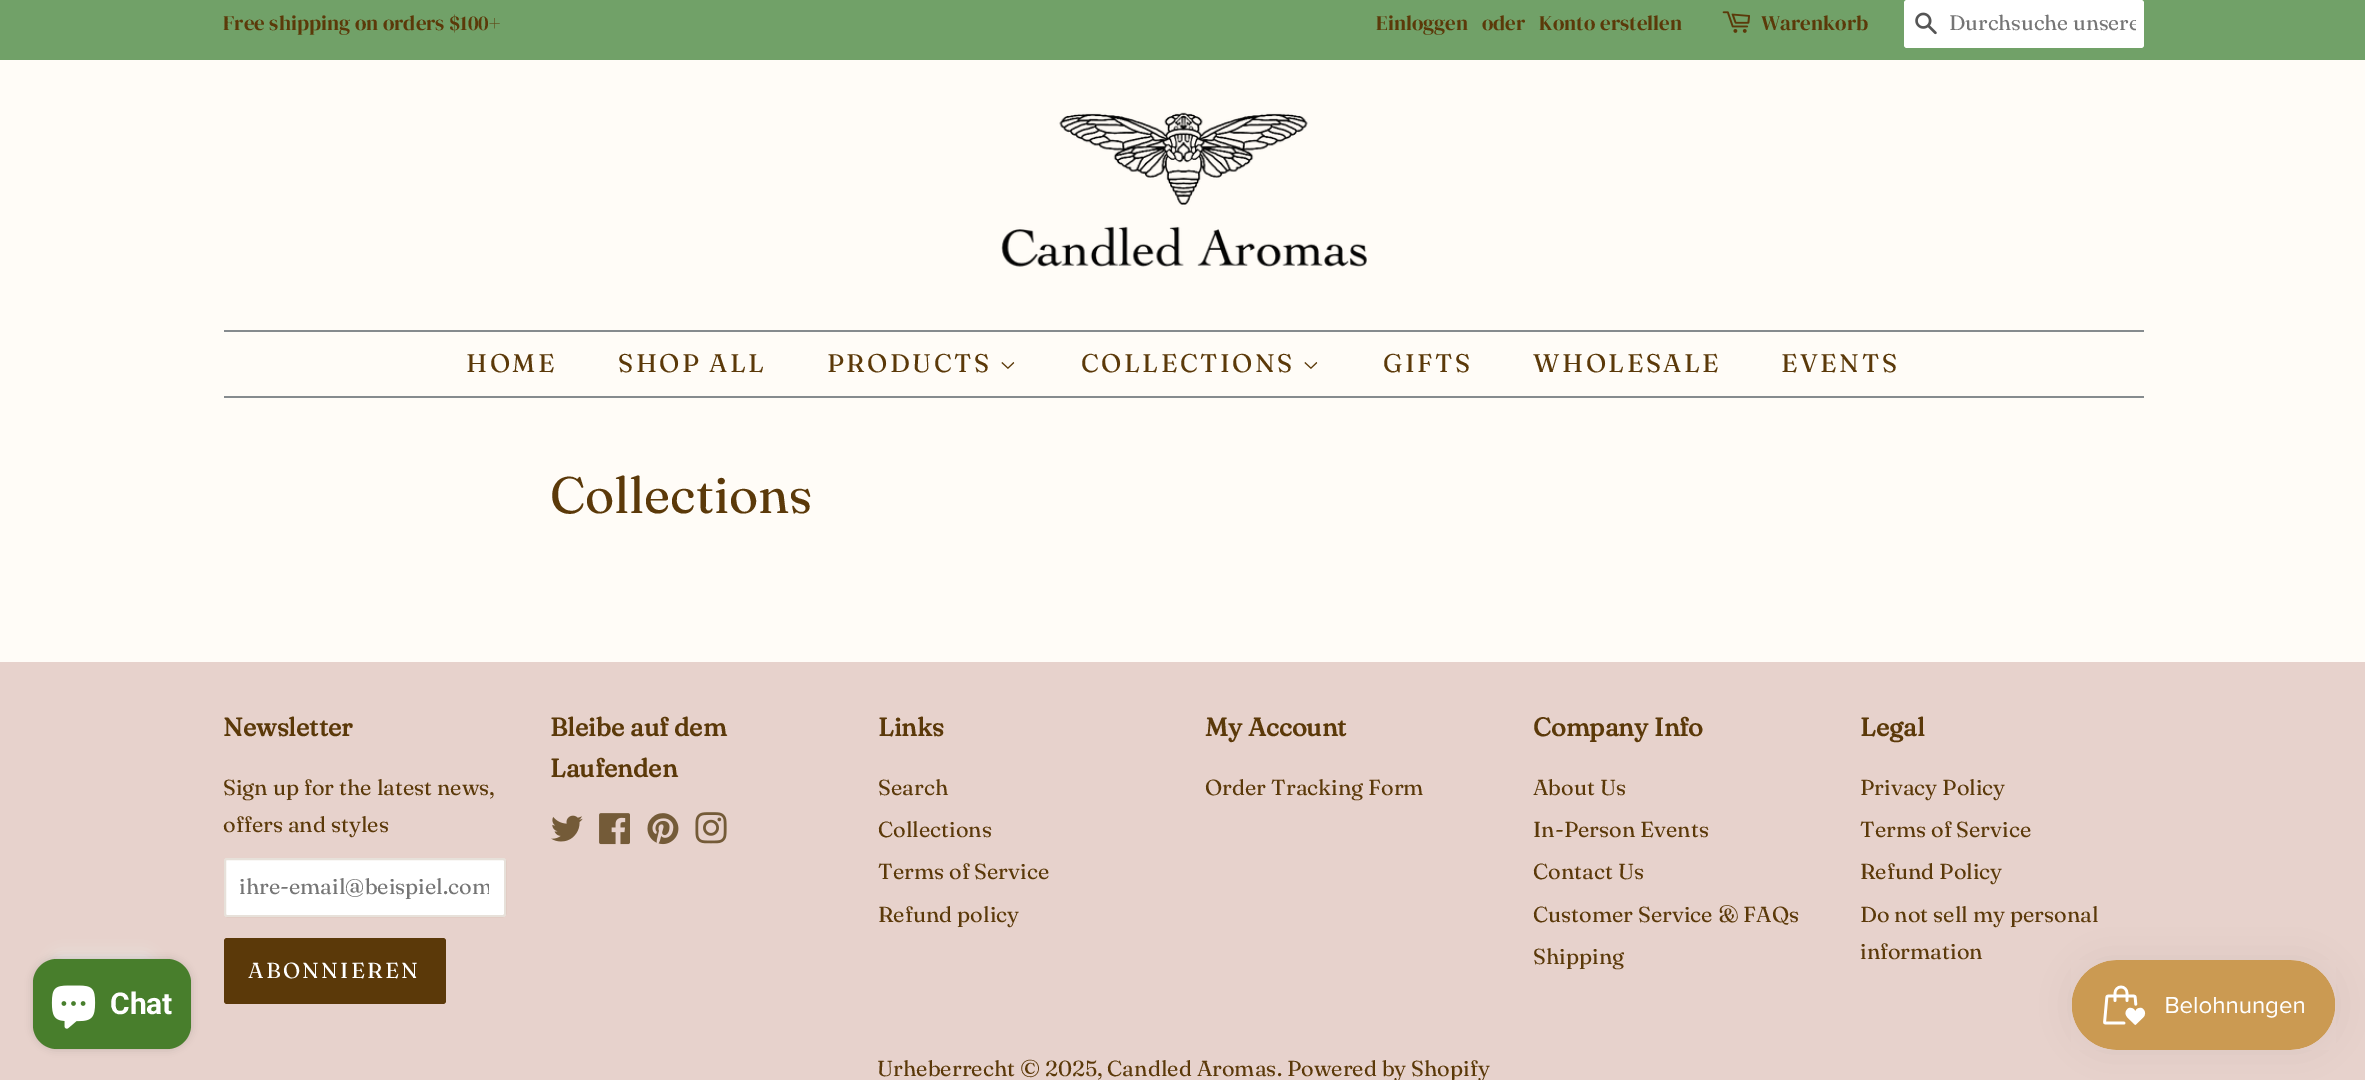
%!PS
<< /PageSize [2365 1080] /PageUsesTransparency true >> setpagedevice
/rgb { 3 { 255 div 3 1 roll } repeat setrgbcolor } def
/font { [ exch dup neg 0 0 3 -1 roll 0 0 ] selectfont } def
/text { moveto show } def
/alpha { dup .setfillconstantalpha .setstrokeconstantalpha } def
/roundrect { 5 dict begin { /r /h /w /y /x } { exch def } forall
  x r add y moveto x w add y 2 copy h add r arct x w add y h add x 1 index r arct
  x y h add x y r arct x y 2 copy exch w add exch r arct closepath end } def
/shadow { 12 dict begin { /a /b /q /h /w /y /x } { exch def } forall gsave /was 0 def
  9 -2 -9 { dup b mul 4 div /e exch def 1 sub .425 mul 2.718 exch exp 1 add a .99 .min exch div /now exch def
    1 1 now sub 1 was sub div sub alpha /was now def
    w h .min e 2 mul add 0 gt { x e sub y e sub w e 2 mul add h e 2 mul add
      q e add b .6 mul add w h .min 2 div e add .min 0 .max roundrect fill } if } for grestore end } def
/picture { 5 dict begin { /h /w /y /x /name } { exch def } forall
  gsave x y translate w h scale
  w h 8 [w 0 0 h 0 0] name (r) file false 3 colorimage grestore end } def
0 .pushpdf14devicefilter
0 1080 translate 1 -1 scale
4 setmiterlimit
255 252 247 rgb
0 0 2365 1080 rectfill
113 161 104 rgb
0 0 2365 60 rectfill
(img_01.rgb) 1722 11 28 22 picture
255 255 255 rgb
1904 0 240 48 3 roundrect fill
(img_02.rgb) 1915 12 22 23 picture
(img_03.rgb) 1001 112 366 155 picture
134 139 142 rgb
224 330 1920 2 rectfill
224 396 1920 2 rectfill
(img_04.rgb) 1001 362 14 7 picture
(img_04.rgb) 1304 362 14 7 picture
231 210 204 rgb
0 662 2365 418 rectfill
232 232 232 rgb
53 956 99 54 8 7.5 1 shadow
68 971 99 54 8 7.5 1 shadow
255 255 255 rgb
224 858 282 59 3 roundrect fill
0.15 alpha
91 57 9 rgb
2 setlinewidth
225 859 280 57 2 roundrect stroke
1 alpha
224 938 222 66 3 roundrect fill
(img_05.rgb) 551 815 32 27 picture
(img_06.rgb) 599 813 31 32 picture
(img_07.rgb) 647 813 32 32 picture
(img_08.rgb) 695 812 32 32 picture
0 0 0 rgb
2072 960 264 90 45 19 0.05 shadow
(img_09.rgb) 2071 960 265 90 picture
33 959 158 90 24 4 0.15 shadow
72 126 44 rgb
33 959 158 90 24 roundrect fill
(img_10.rgb) 51 985 45 44 picture
/DMSerifDisplay-Regular 21 font
91 57 9 rgb
(Free shipping on orders $100+) 223 30 text
(Einloggen) 1376 30 text
(oder) 1482 30 text
(Konto erstellen) 1539 30 text
(Warenkorb) 1761 30 text
gsave
1950 9 186 27 rectclip
/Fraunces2-Regular 21 font
117 117 117 rgb
(Durchsuche unsere) 1949 30 text
grestore
/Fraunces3-Regular 25.5 font
466 372 moveto 2.5 0 (HOME) ashow
618 372 moveto -1 0 32 2.5 0 (SHOP ALL) awidthshow
827 372 moveto 2.5 0 (PRODUCTS) ashow
1081 372 moveto 2.5 0 (COLLECTIONS) ashow
1383 372 moveto 2.5 0 (GIFTS) ashow
1533 372 moveto 2.5 0 (WHOLESALE) ashow
1781 372 moveto 2.5 0 (EVENTS) ashow
/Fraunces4-Regular 51 font
(Collections) 550 513 text
/Fraunces-Bold 25.5 font
(Newsletter) 223 736 text
/Fraunces-Regular 21.7 font
(Sign up for the latest news,) 223 795 text
(offers and styles) 223 832 text
gsave
240 873 249 27 rectclip
117 117 117 rgb
(ihre-email@beispiel.com) 239 894 text
grestore
255 255 255 rgb
248 978 moveto 2.25 0 (ABONNIEREN) ashow
/Fraunces-Bold 25.5 font
91 57 9 rgb
(Bleibe auf dem) 550 736 text
(Laufenden) 550 777 text
(Links) 878 736 text
/Fraunces-Regular 21.7 font
(Search) 878 795 text
(Collections) 878 837 text
(Terms of Service) 878 879 text
(Refund policy) 878 922 text
/Fraunces-Bold 25.5 font
(My Account) 1205 736 text
/Fraunces-Regular 21.7 font
(Order Tracking Form) 1205 795 text
/Fraunces-Bold 25.5 font
(Company Info) 1533 736 text
/Fraunces-Regular 21.7 font
(About Us) 1533 795 text
(In-Person Events) 1533 837 text
(Contact Us) 1533 879 text
(Customer Service & FAQs) 1533 922 text
(Shipping) 1533 964 text
/Fraunces-Bold 25.5 font
(Legal) 1860 736 text
/Fraunces-Regular 21.7 font
(Privacy Policy) 1860 795 text
(Terms of Service) 1860 837 text
(Refund Policy) 1860 879 text
(Do not sell my personal) 1860 922 text
(information) 1860 959 text
(Urheberrecht © 2025, Candled Aromas. Powered by Shopify) 877 1076 text
/Roboto-Bold 30 font
255 255 255 rgb
(Chat) 110 1014 text
.poppdf14devicefilter showpage
